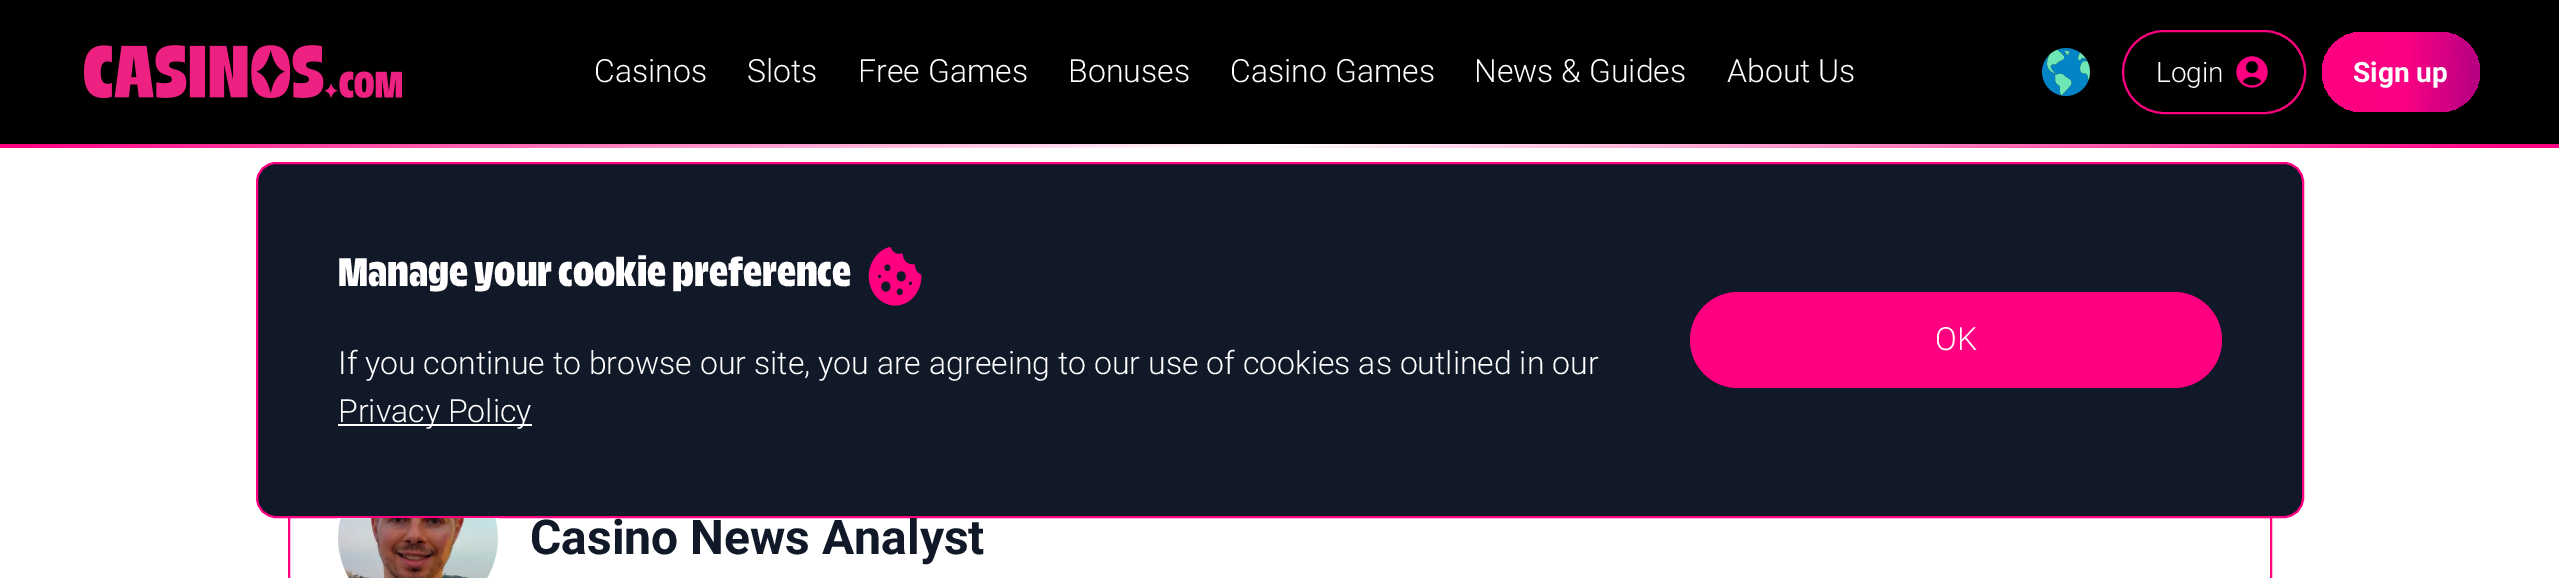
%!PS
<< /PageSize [2559 578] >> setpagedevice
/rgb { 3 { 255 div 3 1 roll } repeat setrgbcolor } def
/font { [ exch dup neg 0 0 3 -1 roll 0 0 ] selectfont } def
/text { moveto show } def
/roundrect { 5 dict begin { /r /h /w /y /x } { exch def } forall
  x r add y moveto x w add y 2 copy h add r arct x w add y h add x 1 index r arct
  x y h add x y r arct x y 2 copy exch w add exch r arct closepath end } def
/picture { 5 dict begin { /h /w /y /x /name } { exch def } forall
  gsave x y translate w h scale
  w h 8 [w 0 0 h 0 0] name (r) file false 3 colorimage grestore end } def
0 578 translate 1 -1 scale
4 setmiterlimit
0 0 0 rgb
0 0 2559 578 rectfill
(img_01.rgb) 84 45 318 53 picture
(img_02.rgb) 2042 48 48 48 picture
255 0 128 rgb
2 setlinewidth
2123 31 182 82 41 roundrect stroke
(img_03.rgb) 2236 56 32 32 picture
gsave 2322 32 158 80 40 roundrect clip newpath
<< /ShadingType 2 /ColorSpace /DeviceRGB /Coords [2482 76 2320 68] /Extend [true true] /Function << /FunctionType 3 /Domain [0 1] /Functions [<< /FunctionType 2 /Domain [0 1] /C0 [0.706 0 0.51] /C1 [0.706 0 0.51] /N 1 >> << /FunctionType 2 /Domain [0 1] /C0 [0.706 0 0.51] /C1 [0.984 0 0.51] /N 1 >> << /FunctionType 2 /Domain [0 1] /C0 [0.984 0 0.51] /C1 [1 0 0.51] /N 1 >> << /FunctionType 2 /Domain [0 1] /C0 [1 0 0.51] /C1 [1 0 0.51] /N 1 >>] /Bounds [0.01 0.47 0.98] /Encode [0 1 0 1 0 1 0 1] >> >> shfill grestore
gsave 0 144 moveto 2559 0 rlineto 0 2 rlineto -2559 0 rlineto closepath clip newpath
<< /ShadingType 2 /ColorSpace /DeviceRGB /Coords [0 145 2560 145] /Extend [true true] /Function << /FunctionType 3 /Domain [0 1] /Functions [<< /FunctionType 2 /Domain [0 1] /C0 [1 0 0.502] /C1 [1 1 1] /N 1 >> << /FunctionType 2 /Domain [0 1] /C0 [1 1 1] /C1 [1 0 0.502] /N 1 >>] /Bounds [0.5] /Encode [0 1 0 1] >> >> shfill grestore
gsave 0 146 moveto 2559 0 rlineto 0 2 rlineto -2559 0 rlineto closepath clip newpath
<< /ShadingType 2 /ColorSpace /DeviceRGB /Coords [0 147 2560 147] /Extend [true true] /Function << /FunctionType 3 /Domain [0 1] /Functions [<< /FunctionType 2 /Domain [0 1] /C0 [1 0 0.51] /C1 [1 0.553 0.78] /N 1 >> << /FunctionType 2 /Domain [0 1] /C0 [1 0.553 0.78] /C1 [1 1 1] /N 1 >> << /FunctionType 2 /Domain [0 1] /C0 [1 1 1] /C1 [1 0.553 0.78] /N 1 >> << /FunctionType 2 /Domain [0 1] /C0 [1 0.553 0.78] /C1 [1 0 0.51] /N 1 >> << /FunctionType 2 /Domain [0 1] /C0 [1 0 0.51] /C1 [1 0 0.51] /N 1 >>] /Bounds [0.25 0.48 0.71 0.97] /Encode [0 1 0 1 0 1 0 1 0 1] >> >> shfill grestore
255 255 255 rgb
0 148 2559 430 rectfill
255 0 128 rgb
289 409 1982 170 rectstroke
17 24 39 rgb
257 163 2046 354 19 roundrect gsave fill grestore
255 0 128 rgb
stroke
(img_04.rgb) 868 247 54 59 picture
255 255 255 rgb
338 424 194 2 rectfill
255 0 128 rgb
1690 292 532 96 48 roundrect fill
(img_05.rgb) 338 518 160 60 picture
/Roboto-Light 32 font
255 255 255 rgb
(Casinos) 594 82 text
(Slots) 747 82 text
(Free Games) 858 82 text
(Bonuses) 1068 82 text
(Casino Games) 1230 82 text
(News & Guides) 1474 82 text
(About Us) 1727 82 text
/Roboto-Light 28 font
(Login) 2156 82 text
/Roboto-Bold 28 font
(Sign up) 2353 82 text
/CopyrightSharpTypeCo-Bold 48 font
(Manage your cookie preference) 338 286 text
/Roboto-Light 32 font
(If you continue to browse our site, you are agreeing to our use of cookies as outlined in our) 338 374 text
(Privacy Policy) 338 422 text
(OK) 1935 350 text
/Roboto-Bold 48 font
17 24 39 rgb
(Casino News Analyst) 530 554 text
showpage
